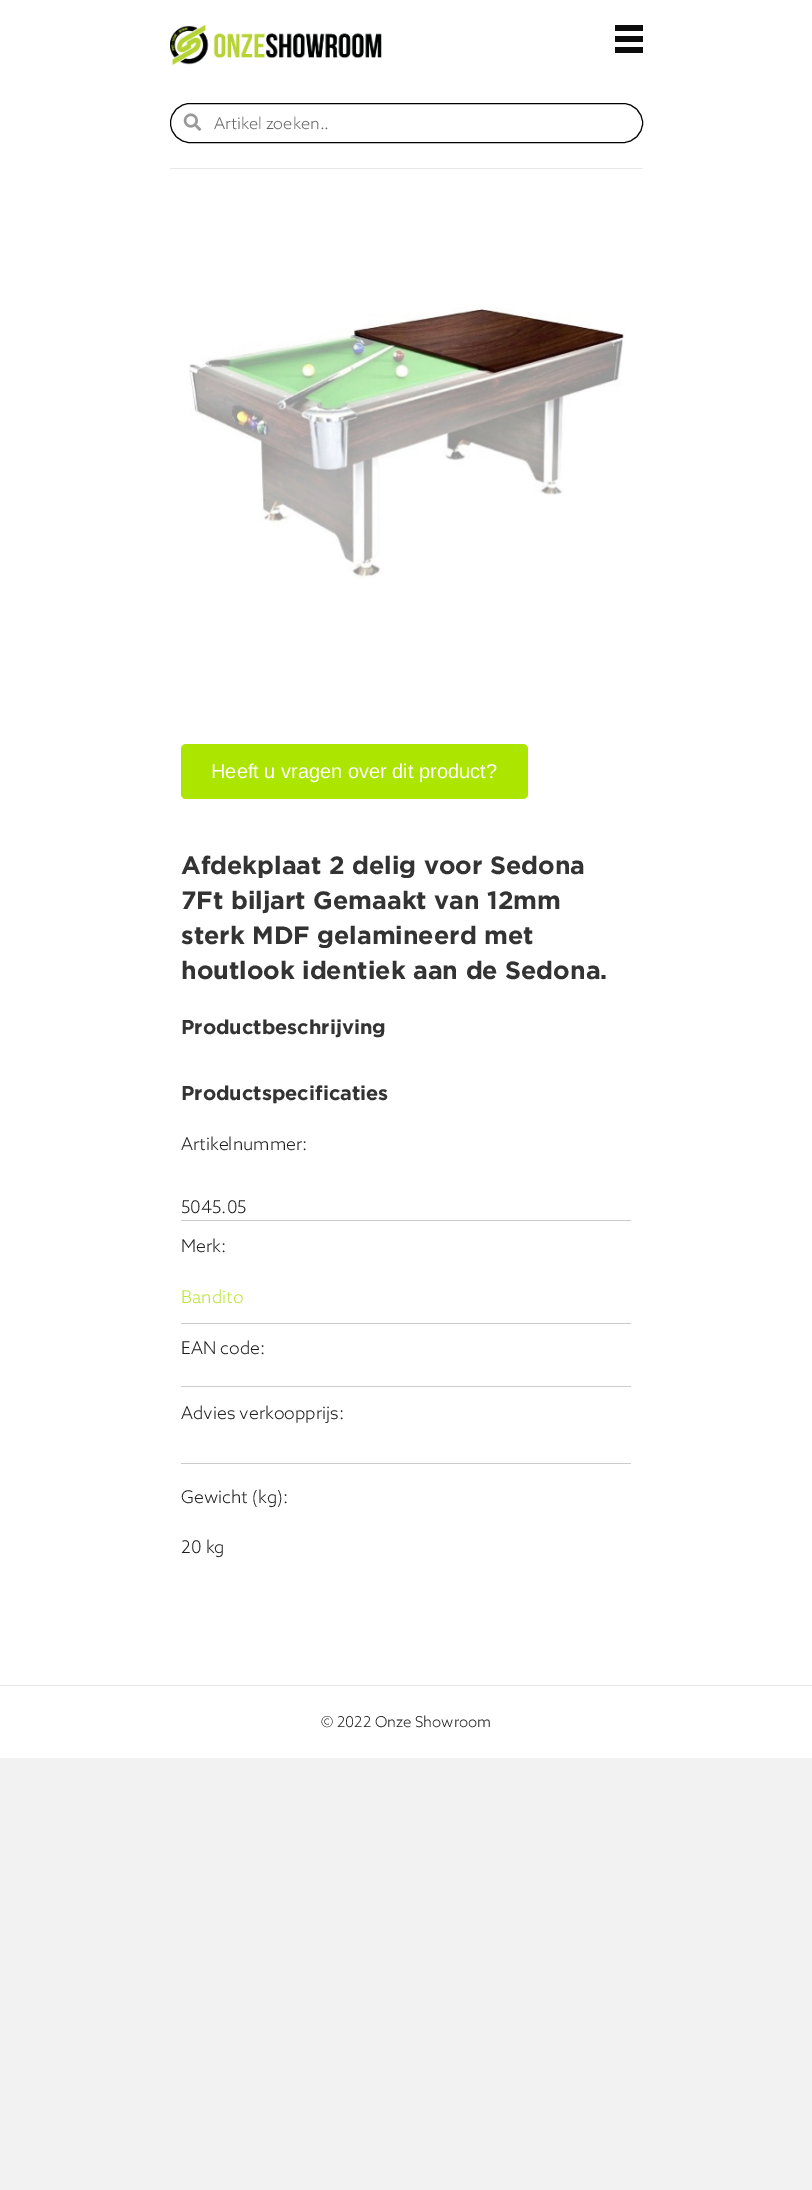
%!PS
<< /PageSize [812 2190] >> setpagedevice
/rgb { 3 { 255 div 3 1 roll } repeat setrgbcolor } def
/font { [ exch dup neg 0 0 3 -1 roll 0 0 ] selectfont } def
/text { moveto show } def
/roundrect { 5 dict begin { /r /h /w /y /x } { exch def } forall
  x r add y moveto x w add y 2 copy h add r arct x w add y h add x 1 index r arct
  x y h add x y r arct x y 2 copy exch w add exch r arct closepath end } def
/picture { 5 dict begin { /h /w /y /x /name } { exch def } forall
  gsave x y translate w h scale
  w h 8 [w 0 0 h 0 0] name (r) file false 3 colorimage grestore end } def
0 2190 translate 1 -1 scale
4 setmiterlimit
242 242 242 rgb
0 0 812 2190 rectfill
255 255 255 rgb
0 0 812 1685 rectfill
(img_01.rgb) 170 25 212 40 picture
12 12 12 rgb
615 25 28 6 rectfill
615 36 28 6 rectfill
615 47 28 6 rectfill
0 0 0 rgb
170.5 103.5 472 39 19.5 roundrect stroke
(img_02.rgb) 183 113 19 18 picture
232 232 232 rgb
170 168 473 1 rectfill
(img_03.rgb) 189 307 436 272 picture
172 229 0 rgb
181 744 347 55 5 roundrect fill
204 204 204 rgb
181 1220 450 1 rectfill
181 1323 450 1 rectfill
181 1386 450 1 rectfill
181 1463 450 1 rectfill
255 255 255 rgb
0 1686 812 72 rectfill
230 230 230 rgb
0 1685 812 1 rectfill
/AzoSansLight-Light 16.25 font
102 102 102 rgb
(Artikel zoeken..) 214 129 text
/LiberationSans-Regular 20 font
255 255 255 rgb
(Heeft u vragen over dit product?) 211 778 text
/Gotham-Bold 25 font
51 51 51 rgb
(Afdekplaat 2 delig voor Sedona) 181 874 text
(7Ft biljart Gemaakt van 12mm) 181 909 text
(sterk MDF gelamineerd met) 181 944 text
(houtlook identiek aan de Sedona.) 181 979 text
/Gotham-Bold 20 font
(Productbeschrijving) 181 1034 text
(Productspecificaties) 181 1100 text
/AzoSansLight-Light 17.5 font
30 30 30 rgb
(Artikelnummer:) 181 1150 text
(5045.05) 181 1213 text
(Merk:) 181 1252 text
185 229 56 rgb
(Bandito) 181 1303 text
30 30 30 rgb
(EAN code:) 181 1354 text
(Advies verkoopprijs:) 181 1419 text
(Gewicht \(kg\):) 181 1503 text
(20 kg) 181 1553 text
/AzoSansLight-Light 15 font
(© 2022 Onze Showroom) 321 1727 text
showpage
